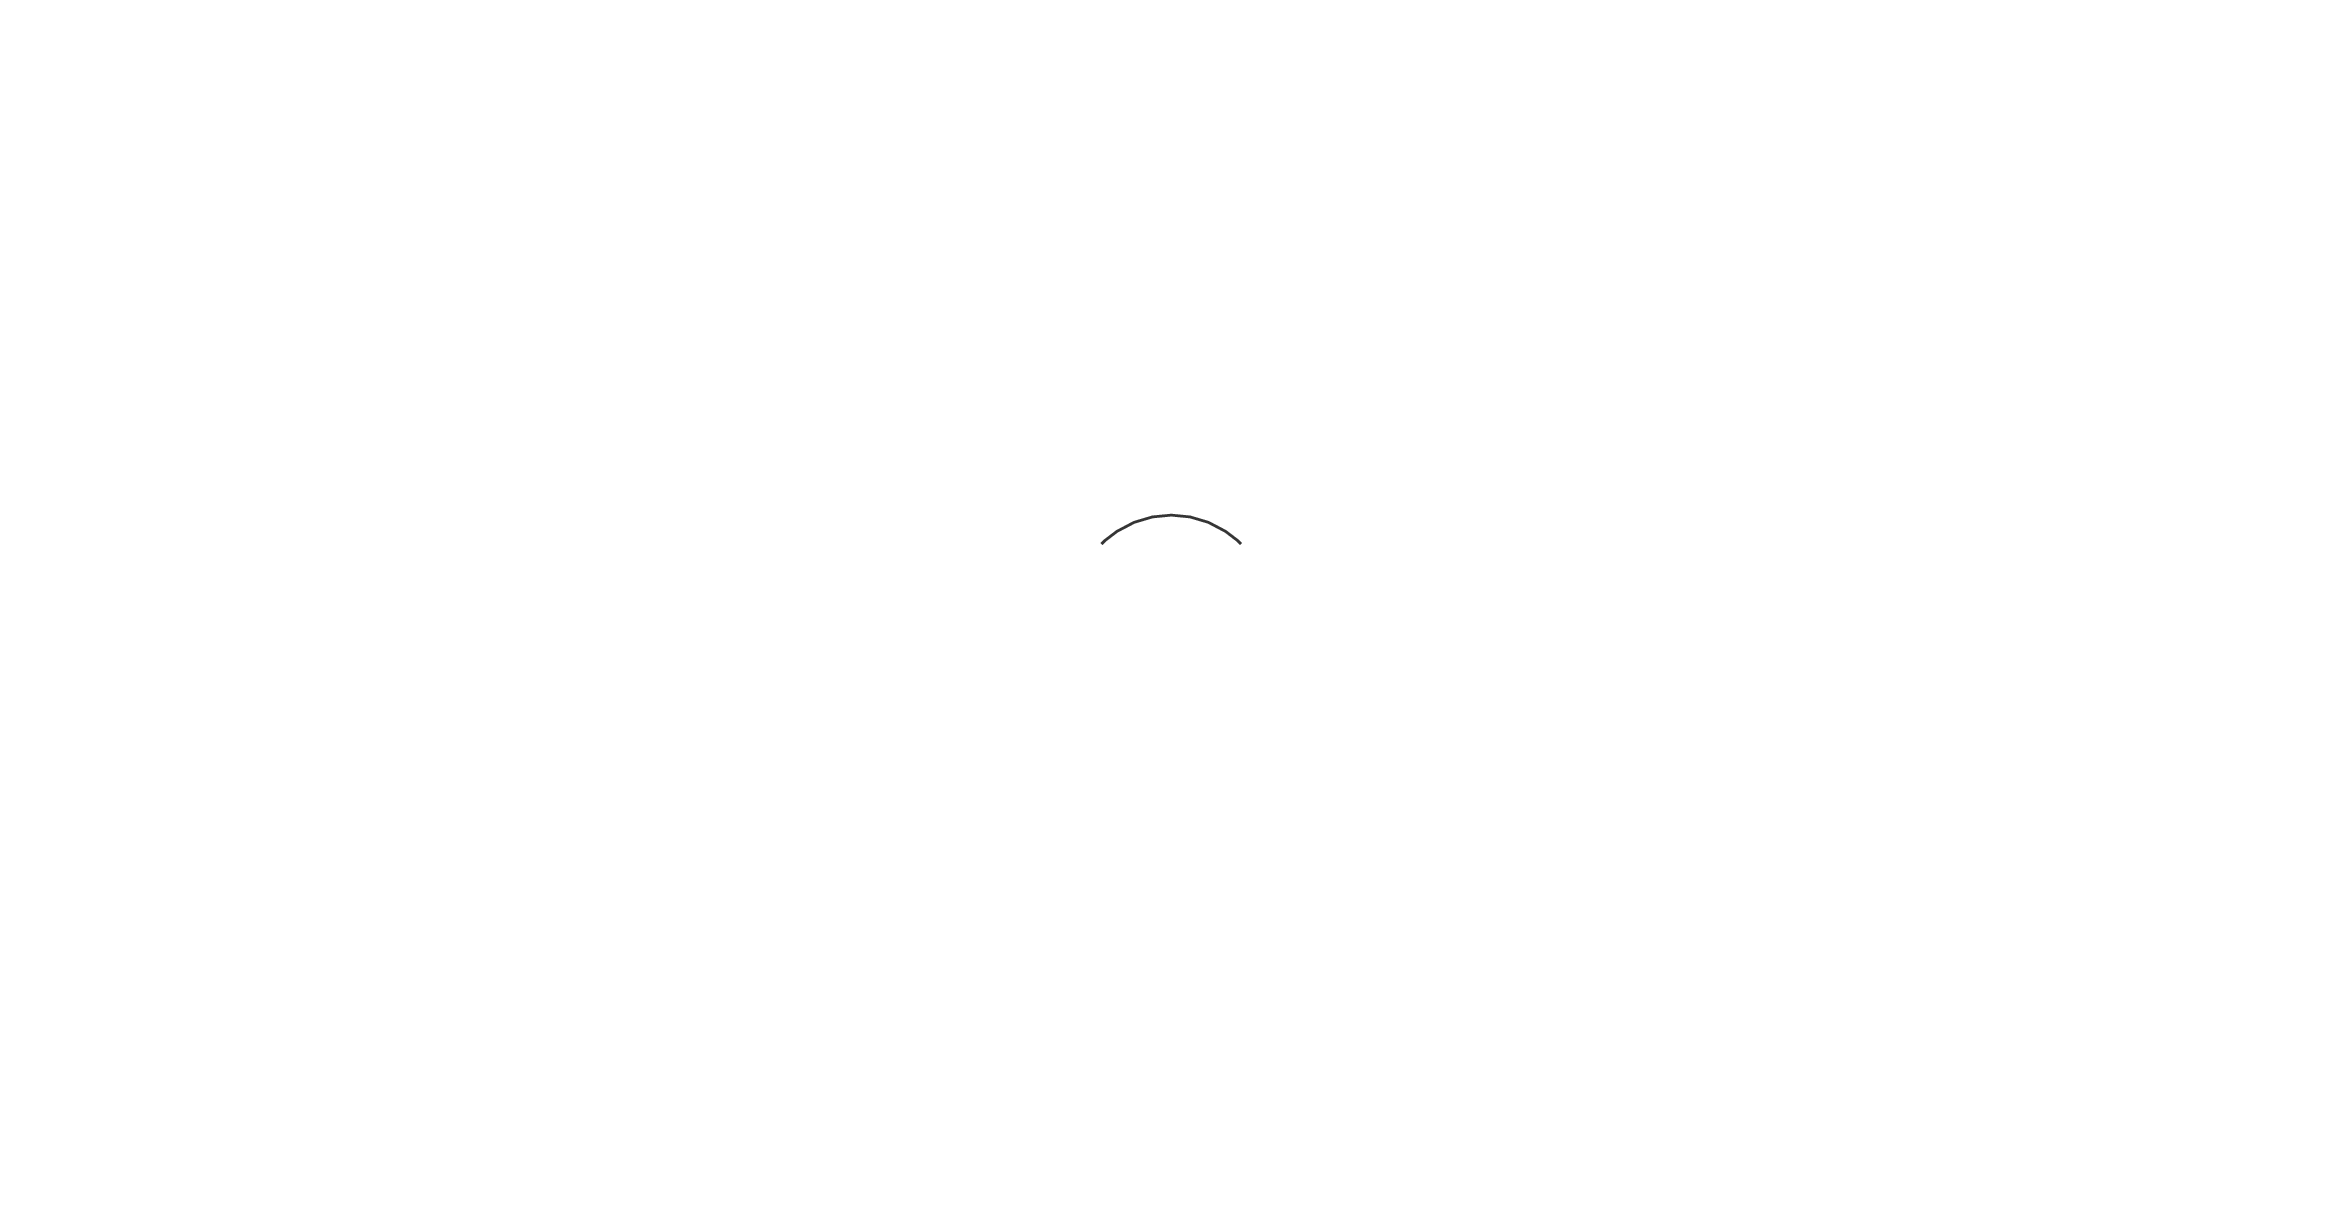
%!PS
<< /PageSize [2342 1227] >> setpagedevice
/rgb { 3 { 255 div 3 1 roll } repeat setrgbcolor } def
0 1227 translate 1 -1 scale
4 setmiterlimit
255 255 255 rgb
0 0 2342 1227 rectfill
53 53 53 rgb
2.5 setlinewidth
1101.5 544 moveto 38.5 -38.5 101 -38.5 139.5 0 rcurveto stroke
showpage
